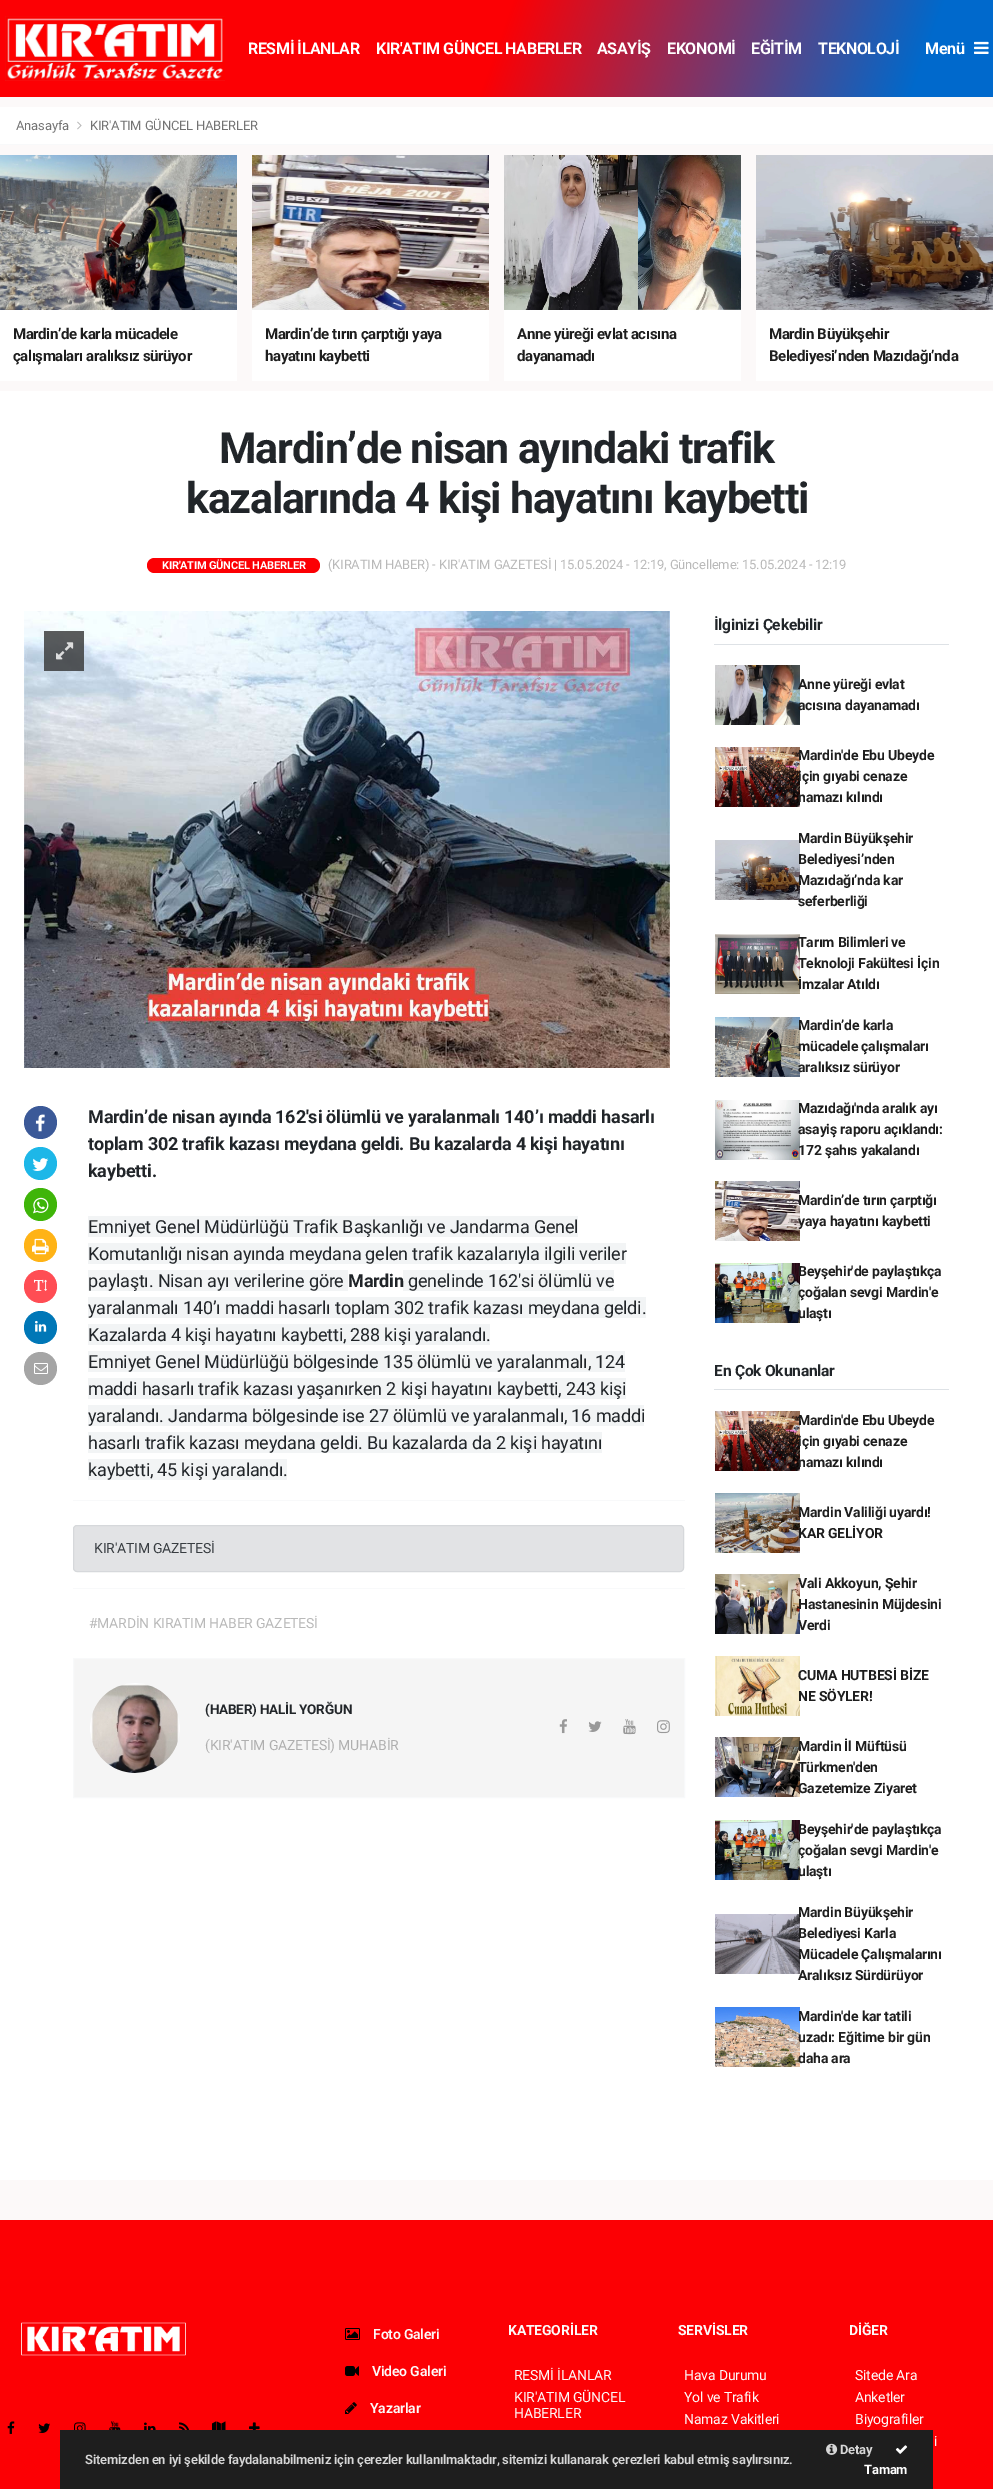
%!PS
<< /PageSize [993 2489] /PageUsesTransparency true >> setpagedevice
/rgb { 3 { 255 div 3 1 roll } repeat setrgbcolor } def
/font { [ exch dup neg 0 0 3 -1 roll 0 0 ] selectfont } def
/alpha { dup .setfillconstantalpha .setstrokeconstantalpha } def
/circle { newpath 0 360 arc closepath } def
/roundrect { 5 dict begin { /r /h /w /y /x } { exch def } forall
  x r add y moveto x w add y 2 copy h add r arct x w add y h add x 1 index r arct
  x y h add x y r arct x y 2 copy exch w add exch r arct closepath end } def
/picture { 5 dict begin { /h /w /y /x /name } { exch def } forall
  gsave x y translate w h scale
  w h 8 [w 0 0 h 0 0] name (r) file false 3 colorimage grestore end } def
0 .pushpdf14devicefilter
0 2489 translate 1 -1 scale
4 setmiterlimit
252 249 249 rgb
0 0 993 2489 rectfill
gsave 0 0 moveto 993 0 rlineto 0 97 rlineto -993 0 rlineto closepath clip newpath
<< /ShadingType 2 /ColorSpace /DeviceRGB /Coords [41 -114 952 211] /Extend [true true] /Function << /FunctionType 3 /Domain [0 1] /Functions [<< /FunctionType 2 /Domain [0 1] /C0 [0.988 0 0.016] /C1 [0.988 0 0.016] /N 1 >> << /FunctionType 2 /Domain [0 1] /C0 [0.988 0 0.016] /C1 [0 0.412 0.8] /N 1 >> << /FunctionType 2 /Domain [0 1] /C0 [0 0.412 0.8] /C1 [0 0.412 0.8] /N 1 >>] /Bounds [0.5 0.92] /Encode [0 1 0 1 0 1] >> >> shfill grestore
(img_01.rgb) 5 16 220 65 picture
(img_02.rgb) 974 41 15 13 picture
255 255 255 rgb
0 107 993 37 rectfill
248 249 250 rgb
0 144 993 1 rectfill
(img_03.rgb) 77 121 5 9 picture
255 255 255 rgb
0 310 237 71 rectfill
(img_04.rgb) 0 155 237 155 picture
252 310 237 71 rectfill
(img_05.rgb) 252 155 237 155 picture
504 310 237 71 rectfill
(img_06.rgb) 504 155 237 155 picture
756 310 237 71 rectfill
(img_07.rgb) 756 155 237 155 picture
0 391 993 1789 rectfill
252 0 4 rgb
147 558 173 15 7.5 roundrect fill
(img_08.rgb) 24 611 646 457 picture
0.8 alpha
51 51 51 rgb
44 631 40 40 rectfill
1 alpha
(img_09.rgb) 56 642 18 18 picture
59 89 152 rgb
40.5 1122.5 16.5 circle fill
(img_10.rgb) 35 1114 10 18 picture
29 183 232 rgb
40.5 1163.5 16.5 circle fill
(img_11.rgb) 32 1158 17 13 picture
63 181 9 rgb
40.5 1204.5 16.5 circle fill
(img_12.rgb) 33 1197 16 17 picture
255 179 22 rgb
40.5 1245.5 16.5 circle fill
(img_13.rgb) 32 1238 17 17 picture
255 77 84 rgb
40.5 1286.5 16.5 circle fill
(img_14.rgb) 34 1279 13 12 picture
0 119 183 rgb
40.5 1327.5 16.5 circle fill
(img_15.rgb) 35 1320 12 12 picture
165 165 165 rgb
40.5 1368.5 16.5 circle fill
(img_16.rgb) 34 1363 14 11 picture
242 244 245 rgb
88 1216 490 21 rectfill
88 1243 538 21 rectfill
88 1270 260 21 rectfill
403 1270 211 21 rectfill
88 1297 558 21 rectfill
88 1324 402 21 rectfill
88 1351 537 21 rectfill
88 1378 538 21 rectfill
88 1405 556 21 rectfill
88 1432 514 21 rectfill
88 1459 199 21 rectfill
248 249 250 rgb
73 1500 612 1 rectfill
226 227 229 rgb
73.5 1525.5 610 46 3.5 roundrect gsave fill grestore
214 216 219 rgb
stroke
248 249 250 rgb
73 1588 612 1 rectfill
245 245 245 rgb
73.5 1658.5 moveto 611 0 rlineto 0 139 rlineto -611 0 rlineto closepath gsave fill grestore
248 249 250 rgb
stroke
238 238 238 rgb
135 1728 45 circle fill
(img_17.rgb) 90 1683 90 90 picture
(img_18.rgb) 559 1719 8 15 picture
(img_19.rgb) 588 1721 14 11 picture
(img_20.rgb) 623 1719 13 16 picture
(img_21.rgb) 657 1720 13 14 picture
222 226 230 rgb
714 644 235 1 rectfill
(img_22.rgb) 715 665 85 60 picture
(img_23.rgb) 715 747 85 60 picture
(img_24.rgb) 715 840 85 60 picture
(img_25.rgb) 715 934 85 60 picture
(img_26.rgb) 715 1017 85 60 picture
(img_27.rgb) 715 1100 85 60 picture
(img_28.rgb) 715 1181 85 60 picture
(img_29.rgb) 715 1263 85 60 picture
714 1389 235 1 rectfill
(img_23.rgb) 715 1411 85 60 picture
(img_30.rgb) 715 1493 85 60 picture
(img_31.rgb) 715 1574 85 60 picture
(img_32.rgb) 715 1656 85 60 picture
(img_33.rgb) 715 1737 85 60 picture
(img_29.rgb) 715 1820 85 60 picture
(img_34.rgb) 715 1914 85 60 picture
(img_35.rgb) 715 2007 85 60 picture
252 0 4 rgb
0 2220 993 269 rectfill
(img_36.rgb) 21 2322 165 34 picture
(img_37.rgb) 7 2421 8 13 picture
(img_38.rgb) 38 2423 12 10 picture
(img_39.rgb) 74 2422 12 8 picture
(img_40.rgb) 109 2421 12 9 picture
(img_41.rgb) 144 2422 12 8 picture
(img_42.rgb) 179 2422 11 8 picture
(img_43.rgb) 212 2421 14 9 picture
(img_44.rgb) 249 2422 11 8 picture
(img_45.rgb) 345 2328 15 12 picture
(img_46.rgb) 345 2366 14 10 picture
(img_47.rgb) 345 2402 12 12 picture
30 30 30 rgb
60 2430 873 59 rectfill
(img_48.rgb) 826 2443 12 12 picture
(img_49.rgb) 895 2445 13 9 picture
/Roboto-Bold 16 font
255 255 255 rgb
248 54 moveto -0.4 0 (RESMİ İLANLAR) ashow
376 54 moveto -0.4 0 (KIR'ATIM GÜNCEL HABERLER) ashow
597 54 moveto -0.4 0 (ASAYİŞ) ashow
667 54 moveto -0.4 0 (EKONOMİ) ashow
751 54 moveto -0.4 0 (EĞİTİM) ashow
818 54 moveto -0.4 0 (TEKNOLOJİ) ashow
925 54 moveto -0.19 0 (Menü) ashow
/Roboto-Regular 13 font
115 115 115 rgb
16 130 moveto -0.19 0 (Anasayfa) ashow
90 130 moveto -0.19 0 (KIR'ATIM GÜNCEL HABERLER) ashow
/Roboto-Bold 15 font
30 30 30 rgb
13 339 moveto -0.4 0 (Mardin’de karla mücadele) ashow
13 361 moveto -0.4 0 (çalışmaları aralıksız sürüyor) ashow
265 339 moveto -0.4 0 (Mardin’de tırın çarptığı yaya) ashow
265 361 moveto -0.4 0 (hayatını kaybetti) ashow
517 339 moveto -0.4 0 (Anne yüreği evlat acısına) ashow
517 361 moveto -0.4 0 (dayanamadı) ashow
769 339 moveto -0.4 0 (Mardin Büyükşehir) ashow
769 361 moveto -0.4 0 (Belediyesi’nden Mazıdağı’nda) ashow
/Roboto-Bold 43 font
33 37 41 rgb
219 463 moveto -1.3 0 (Mardin’de nisan ayındaki trafik) ashow
186 513 moveto -1.3 0 (kazalarında 4 kişi hayatını kaybetti) ashow
/Roboto-Bold 11 font
255 255 255 rgb
162 569 moveto -0.19 0 (KIR'ATIM GÜNCEL HABERLER) ashow
/Roboto-Regular 13 font
185 185 185 rgb
328 569 moveto -0.19 0 (\(KIRATIM HABER\) - KIR'ATIM GAZETESİ | 15.05.2024 - 12:19, Güncelleme: 15.05.2024 - 12:19) ashow
/Roboto-Bold 18 font
33 37 41 rgb
88 1123 moveto -0.19 0 (Mardin’de nisan ayında 162'si ölümlü ve yaralanmalı 140’ı maddi hasarlı) ashow
88 1150 moveto -0.19 0 (toplam 302 trafik kazası meydana geldi. Bu kazalarda 4 kişi hayatını) ashow
88 1177 moveto -0.19 0 (kaybetti.) ashow
/Roboto-Regular 18 font
88 1233 moveto -0.19 0 (Emniyet Genel Müdürlüğü Trafik Başkanlığı ve Jandarma Genel) ashow
88 1260 moveto -0.19 0 (Komutanlığı nisan ayında meydana gelen trafik kazalarıyla ilgili veriler) ashow
88 1287 moveto -0.19 0 (paylaştı. Nisan ayı verilerine göre) ashow
/Roboto-Bold 18 font
348 1287 moveto -0.19 0 (Mardin) ashow
/Roboto-Regular 18 font
408 1287 moveto -0.19 0 (genelinde 162'si ölümlü ve) ashow
88 1314 moveto -0.19 0 (yaralanmalı 140’ı maddi hasarlı toplam 302 trafik kazası meydana geldi.) ashow
88 1341 moveto -0.19 0 (Kazalarda 4 kişi hayatını kaybetti, 288 kişi yaralandı.) ashow
88 1368 moveto -0.19 0 (Emniyet Genel Müdürlüğü bölgesinde 135 ölümlü ve yaralanmalı, 124) ashow
88 1395 moveto -0.19 0 (maddi hasarlı trafik kazası yaşanırken 2 kişi hayatını kaybetti, 243 kişi) ashow
88 1422 moveto -0.19 0 (yaralandı. Jandarma bölgesinde ise 27 ölümlü ve yaralanmalı, 16 maddi) ashow
88 1449 moveto -0.19 0 (hasarlı trafik kazası meydana geldi. Bu kazalarda da 2 kişi hayatını) ashow
88 1476 moveto -0.19 0 (kaybetti, 45 kişi yaralandı.) ashow
/Roboto-Regular 14 font
56 61 65 rgb
94 1553 moveto -0.19 0 (KIR'ATIM GAZETESİ) ashow
185 185 185 rgb
89 1628 moveto -0.19 0 (#MARDİN KIRATIM HABER GAZETESİ) ashow
/Roboto-Bold 13.5 font
33 37 41 rgb
205 1714 moveto -0.19 0 (\(HABER\) HALİL YORĞUN) ashow
/Roboto-Regular 14 font
175 175 175 rgb
205 1750 moveto -0.19 0 (\(KIR'ATIM GAZETESİ\) MUHABİR) ashow
/Roboto-Bold 15.5 font
33 37 41 rgb
714 630 moveto -0.19 0 (İlginizi Çekebilir) ashow
/Roboto-Bold 14 font
30 30 30 rgb
798 689 moveto -0.19 0 (Anne yüreği evlat) ashow
798 710 moveto -0.19 0 (acısına dayanamadı) ashow
798 760 moveto -0.19 0 (Mardin'de Ebu Ubeyde) ashow
798 781 moveto -0.19 0 (için gıyabi cenaze) ashow
798 802 moveto -0.19 0 (namazı kılındı) ashow
798 843 moveto -0.19 0 (Mardin Büyükşehir) ashow
798 864 moveto -0.19 0 (Belediyesi’nden) ashow
798 885 moveto -0.19 0 (Mazıdağı’nda kar) ashow
798 906 moveto -0.19 0 (seferberliği) ashow
798 947 moveto -0.19 0 (Tarım Bilimleri ve) ashow
798 968 moveto -0.19 0 (Teknoloji Fakültesi İçin) ashow
798 989 moveto -0.19 0 (İmzalar Atıldı) ashow
798 1030 moveto -0.19 0 (Mardin’de karla) ashow
798 1051 moveto -0.19 0 (mücadele çalışmaları) ashow
798 1072 moveto -0.19 0 (aralıksız sürüyor) ashow
798 1113 moveto -0.19 0 (Mazıdağı'nda aralık ayı) ashow
798 1134 moveto -0.19 0 (asayiş raporu açıklandı:) ashow
798 1155 moveto -0.19 0 (172 şahıs yakalandı) ashow
798 1205 moveto -0.19 0 (Mardin’de tırın çarptığı) ashow
798 1226 moveto -0.19 0 (yaya hayatını kaybetti) ashow
798 1276 moveto -0.19 0 (Beyşehir'de paylaştıkça) ashow
798 1297 moveto -0.19 0 (çoğalan sevgi Mardin'e) ashow
798 1318 moveto -0.19 0 (ulaştı) ashow
/Roboto-Bold 15.5 font
33 37 41 rgb
714 1376 moveto -0.19 0 (En Çok Okunanlar) ashow
/Roboto-Bold 14 font
30 30 30 rgb
798 1425 moveto -0.19 0 (Mardin'de Ebu Ubeyde) ashow
798 1446 moveto -0.19 0 (için gıyabi cenaze) ashow
798 1467 moveto -0.19 0 (namazı kılındı) ashow
798 1517 moveto -0.19 0 (Mardin Valiliği uyardı!) ashow
798 1538 moveto -0.19 0 (KAR GELİYOR) ashow
798 1588 moveto -0.19 0 (Vali Akkoyun, Şehir) ashow
798 1609 moveto -0.19 0 (Hastanesinin Müjdesini) ashow
798 1630 moveto -0.19 0 (Verdi) ashow
798 1680 moveto -0.19 0 (CUMA HUTBESİ BİZE) ashow
798 1701 moveto -0.19 0 (NE SÖYLER!) ashow
798 1751 moveto -0.19 0 (Mardin İl Müftüsü) ashow
798 1772 moveto -0.19 0 (Türkmen'den) ashow
798 1793 moveto -0.19 0 (Gazetemize Ziyaret) ashow
798 1834 moveto -0.19 0 (Beyşehir'de paylaştıkça) ashow
798 1855 moveto -0.19 0 (çoğalan sevgi Mardin'e) ashow
798 1876 moveto -0.19 0 (ulaştı) ashow
798 1917 moveto -0.19 0 (Mardin Büyükşehir) ashow
798 1938 moveto -0.19 0 (Belediyesi Karla) ashow
798 1959 moveto -0.19 0 (Mücadele Çalışmalarını) ashow
798 1980 moveto -0.19 0 (Aralıksız Sürdürüyor) ashow
798 2021 moveto -0.19 0 (Mardin'de kar tatili) ashow
798 2042 moveto -0.19 0 (uzadı: Eğitime bir gün) ashow
798 2063 moveto -0.19 0 (daha ara) ashow
/Roboto-SemiBold 14 font
252 249 249 rgb
373 2339 moveto -0.19 0 (Foto Galeri) ashow
372 2376 moveto -0.19 0 (Video Galeri) ashow
370 2413 moveto -0.19 0 (Yazarlar) ashow
/Roboto-Bold 14 font
508 2335 moveto -0.19 0 (KATEGORİLER) ashow
/Roboto-Regular 14 font
514 2380 moveto -0.19 0 (RESMİ İLANLAR) ashow
514 2402 moveto -0.19 0 (KIR'ATIM GÜNCEL) ashow
514 2418 moveto -0.19 0 (HABERLER) ashow
/Roboto-Bold 14 font
678 2335 moveto -0.19 0 (SERVİSLER) ashow
/Roboto-Regular 14 font
684 2380 moveto -0.19 0 (Hava Durumu) ashow
684 2402 moveto -0.19 0 (Yol ve Trafik) ashow
684 2424 moveto -0.19 0 (Namaz Vakitleri) ashow
/Roboto-Bold 14 font
849 2335 moveto -0.19 0 (DİĞER) ashow
/Roboto-Regular 14 font
855 2380 moveto -0.19 0 (Sitede Ara) ashow
855 2402 moveto -0.19 0 (Anketler) ashow
855 2424 moveto -0.19 0 (Biyografiler) ashow
934 2446 moveto -0.19 0 (i) ashow
/Roboto-SemiBold 13 font
215 215 215 rgb
85 2464 moveto -0.19 0 (Sitemizden en iyi şekilde faydalanabilmeniz için çerezler kullanılmaktadır, sitemizi kullanarak çerezleri kabul etmiş saylırsınız.) ashow
/Roboto-Bold 13 font
840 2454 moveto -0.19 0 (Detay) ashow
255 255 255 rgb
864 2474 moveto -0.19 0 (Tamam) ashow
.poppdf14devicefilter showpage
